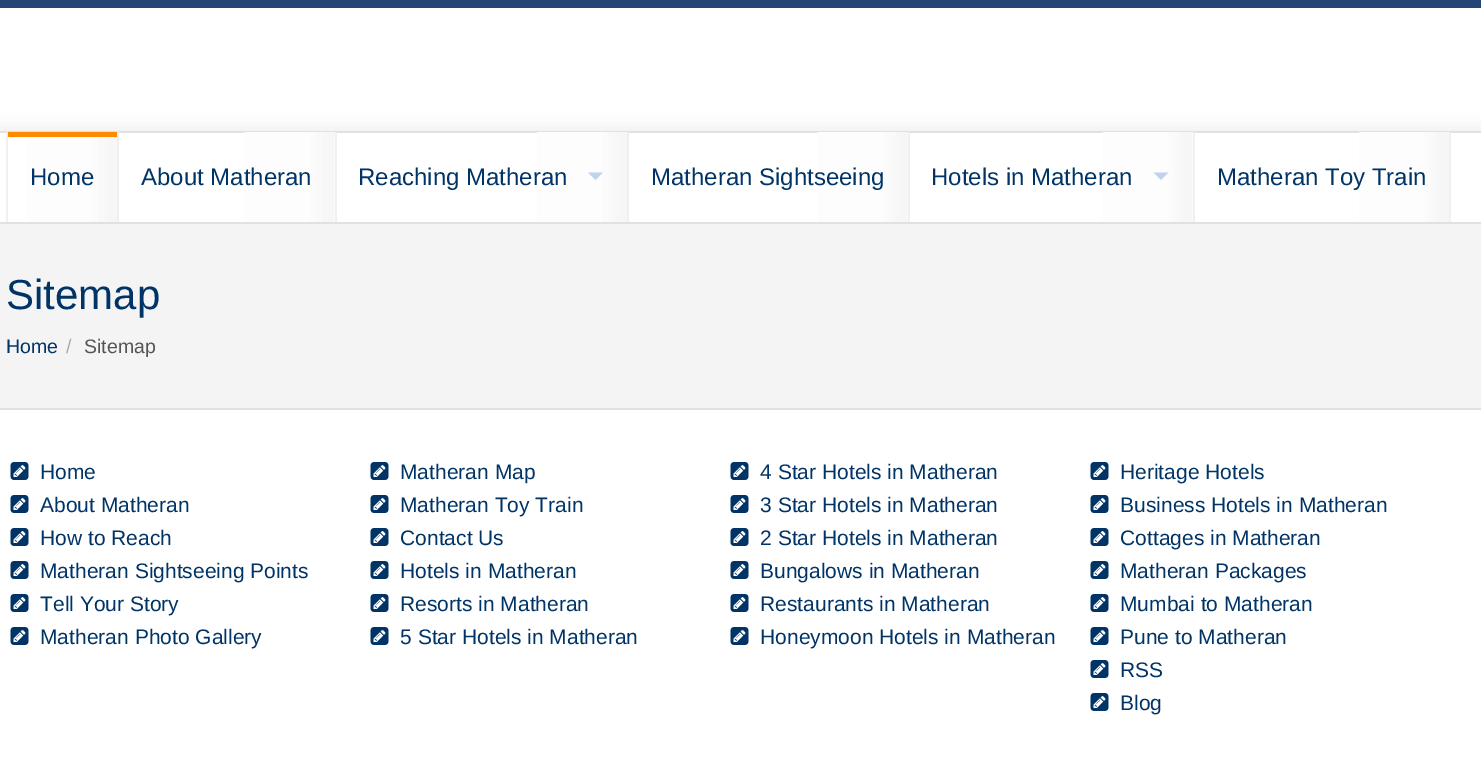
%!PS
<< /PageSize [1481 771] /PageUsesTransparency true >> setpagedevice
/rgb { 3 { 255 div 3 1 roll } repeat setrgbcolor } def
/font { [ exch dup neg 0 0 3 -1 roll 0 0 ] selectfont } def
/text { moveto show } def
/alpha { dup .setfillconstantalpha .setstrokeconstantalpha } def
/roundrect { 5 dict begin { /r /h /w /y /x } { exch def } forall
  x r add y moveto x w add y 2 copy h add r arct x w add y h add x 1 index r arct
  x y h add x y r arct x y 2 copy exch w add exch r arct closepath end } def
/shadow { 12 dict begin { /a /b /q /h /w /y /x } { exch def } forall gsave /was 0 def
  9 -2 -9 { dup b mul 4 div /e exch def 1 sub .425 mul 2.718 exch exp 1 add a .99 .min exch div /now exch def
    1 1 now sub 1 was sub div sub alpha /was now def
    w h .min e 2 mul add 0 gt { x e sub y e sub w e 2 mul add h e 2 mul add
      q e add b .6 mul add w h .min 2 div e add .min 0 .max roundrect fill } if } for grestore end } def
/picture { 5 dict begin { /h /w /y /x /name } { exch def } forall
  gsave x y translate w h scale
  w h 8 [w 0 0 h 0 0] name (r) file false 3 colorimage grestore end } def
0 .pushpdf14devicefilter
0 771 translate 1 -1 scale
4 setmiterlimit
255 255 255 rgb
0 0 1481 771 rectfill
36 70 119 rgb
0 0 1481 8 rectfill
85 85 85 rgb
-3 128 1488 99 0 7.5 0.1 shadow
255 255 255 rgb
0 133 1481 89 rectfill
225 225 225 rgb
0 131 1481 2 rectfill
0 222 1481 2 rectfill
240 240 240 rgb
6 132 2 90 rectfill
(img_01.rgb) 27 137 90 85 picture
117 132 2 90 rectfill
255 138 0 rgb
8 132 109 5 rectfill
(img_02.rgb) 244 132 91 90 picture
240 240 240 rgb
335 132 2 90 rectfill
(img_03.rgb) 537 132 90 90 picture
627 132 2 90 rectfill
193 211 236 rgb
588 172.5 moveto 15 0 rlineto -7.5 7.5 rlineto closepath fill
(img_02.rgb) 817 132 91 90 picture
240 240 240 rgb
908 132 2 90 rectfill
(img_02.rgb) 1102 132 91 90 picture
1193 132 2 90 rectfill
193 211 236 rgb
1153.5 172.5 moveto 15 0 rlineto -7.5 7.5 rlineto closepath fill
(img_03.rgb) 1359 132 90 90 picture
240 240 240 rgb
1449 132 2 90 rectfill
244 244 244 rgb
0 224 1481 184 rectfill
225 225 225 rgb
0 408 1481 2 rectfill
(img_04.rgb) 10 462 19 18 picture
(img_04.rgb) 10 495 19 18 picture
(img_04.rgb) 10 528 19 18 picture
(img_04.rgb) 10 561 19 18 picture
(img_04.rgb) 10 594 19 18 picture
(img_04.rgb) 10 627 19 18 picture
(img_05.rgb) 370 462 19 18 picture
(img_05.rgb) 370 495 19 18 picture
(img_05.rgb) 370 528 19 18 picture
(img_05.rgb) 370 561 19 18 picture
(img_05.rgb) 370 594 19 18 picture
(img_05.rgb) 370 627 19 18 picture
(img_05.rgb) 730 462 19 18 picture
(img_05.rgb) 730 495 19 18 picture
(img_05.rgb) 730 528 19 18 picture
(img_05.rgb) 730 561 19 18 picture
(img_05.rgb) 730 594 19 18 picture
(img_05.rgb) 730 627 19 18 picture
(img_05.rgb) 1090 462 19 18 picture
(img_05.rgb) 1090 495 19 18 picture
(img_05.rgb) 1090 528 19 18 picture
(img_05.rgb) 1090 561 19 18 picture
(img_05.rgb) 1090 594 19 18 picture
(img_05.rgb) 1090 627 19 18 picture
(img_05.rgb) 1090 660 19 18 picture
(img_05.rgb) 1090 693 19 18 picture
/LiberationSans-Regular 24 font
0 51 102 rgb
(Home) 30 185 text
(About Matheran) 141 185 text
(Reaching Matheran) 358 185 text
(Matheran Sightseeing) 651 185 text
(Hotels in Matheran) 931 185 text
(Matheran Toy Train) 1217 185 text
/LiberationSans-Regular 42 font
(Sitemap) 6 309 text
/LiberationSans-Regular 19.5 font
(Home) 6 353 text
172 172 172 rgb
(/) 66 353 text
85 85 85 rgb
(Sitemap) 84 353 text
/LiberationSans-Regular 21 font
0 51 102 rgb
(Home) 40 479 text
(About Matheran) 40 512 text
(How to Reach) 40 545 text
(Matheran Sightseeing Points) 40 578 text
(Tell Your Story) 40 611 text
(Matheran Photo Gallery) 40 644 text
(Matheran Map) 400 479 text
(Matheran Toy Train) 400 512 text
(Contact Us) 400 545 text
(Hotels in Matheran) 400 578 text
(Resorts in Matheran) 400 611 text
(5 Star Hotels in Matheran) 400 644 text
(4 Star Hotels in Matheran) 760 479 text
(3 Star Hotels in Matheran) 760 512 text
(2 Star Hotels in Matheran) 760 545 text
(Bungalows in Matheran) 760 578 text
(Restaurants in Matheran) 760 611 text
(Honeymoon Hotels in Matheran) 760 644 text
(Heritage Hotels) 1120 479 text
(Business Hotels in Matheran) 1120 512 text
(Cottages in Matheran) 1120 545 text
(Matheran Packages) 1120 578 text
(Mumbai to Matheran) 1120 611 text
(Pune to Matheran) 1120 644 text
(RSS) 1120 677 text
(Blog) 1120 710 text
.poppdf14devicefilter showpage
